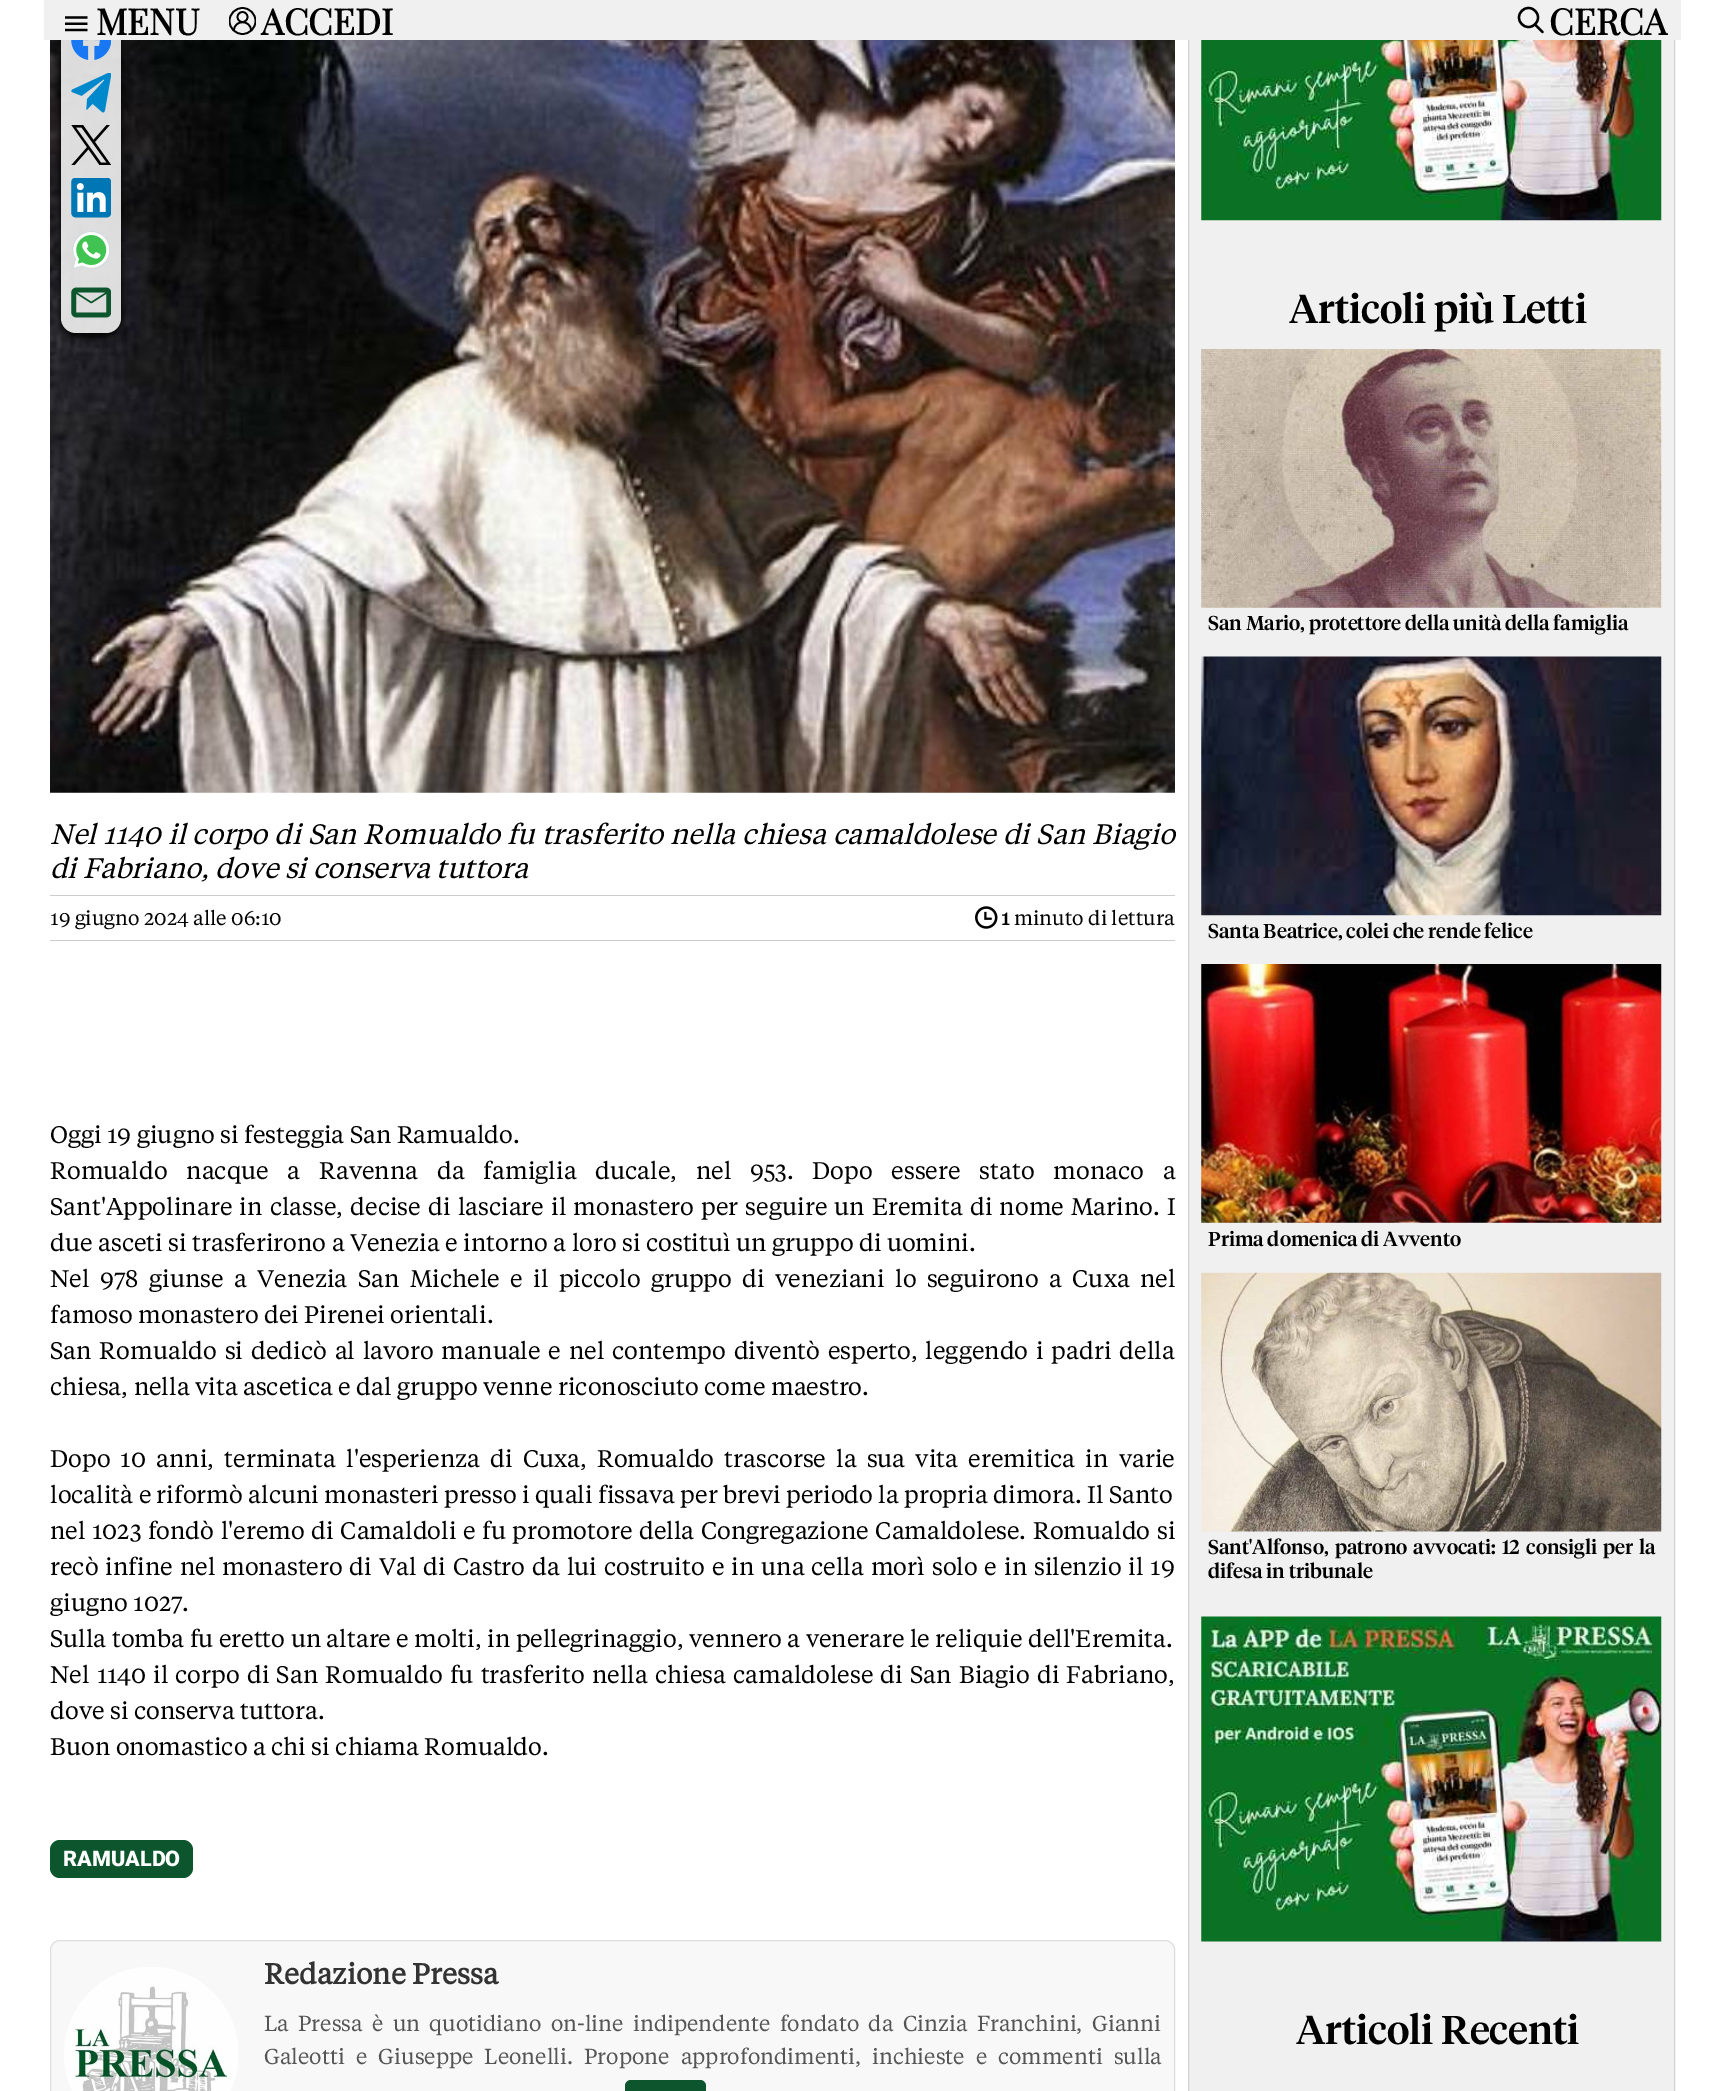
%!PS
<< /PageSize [1725 2091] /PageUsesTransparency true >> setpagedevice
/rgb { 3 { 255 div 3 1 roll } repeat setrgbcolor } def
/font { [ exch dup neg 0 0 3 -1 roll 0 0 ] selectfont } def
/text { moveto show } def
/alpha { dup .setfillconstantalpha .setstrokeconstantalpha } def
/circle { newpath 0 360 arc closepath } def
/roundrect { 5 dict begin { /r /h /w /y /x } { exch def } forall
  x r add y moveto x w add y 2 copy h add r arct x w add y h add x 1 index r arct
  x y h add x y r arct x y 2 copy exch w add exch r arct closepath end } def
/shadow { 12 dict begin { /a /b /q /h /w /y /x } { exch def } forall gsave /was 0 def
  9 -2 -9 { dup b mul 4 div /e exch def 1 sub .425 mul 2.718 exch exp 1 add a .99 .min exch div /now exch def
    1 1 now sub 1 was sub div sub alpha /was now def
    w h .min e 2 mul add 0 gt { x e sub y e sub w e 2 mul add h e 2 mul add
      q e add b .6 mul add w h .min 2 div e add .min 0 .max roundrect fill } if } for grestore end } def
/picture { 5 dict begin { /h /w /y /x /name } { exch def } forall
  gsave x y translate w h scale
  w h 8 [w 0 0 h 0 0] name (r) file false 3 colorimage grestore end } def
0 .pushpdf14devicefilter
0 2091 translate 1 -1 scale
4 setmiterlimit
255 255 255 rgb
0 0 1725 2091 rectfill
(img_08.rgb) 50 40 1125 753 picture
gsave
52 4 moveto 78 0 rlineto 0 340 rlineto -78 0 rlineto closepath 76 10 moveto 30 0 rlineto 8.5 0 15 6.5 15 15 rcurveto 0 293 rlineto 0 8.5 -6.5 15 -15 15 rcurveto -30 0 rlineto -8.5 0 -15 -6.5 -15 -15 rcurveto 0 -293 rlineto 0 -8.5 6.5 -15 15 -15 rcurveto closepath eoclip newpath
0 0 0 rgb
61 13 60 322 15 2.5 0.4 shadow
grestore
gsave
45 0 moveto 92 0 rlineto 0 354 rlineto -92 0 rlineto closepath 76 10 moveto 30 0 rlineto 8.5 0 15 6.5 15 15 rcurveto 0 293 rlineto 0 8.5 -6.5 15 -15 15 rcurveto -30 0 rlineto -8.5 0 -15 -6.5 -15 -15 rcurveto 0 -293 rlineto 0 -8.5 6.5 -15 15 -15 rcurveto closepath eoclip newpath
0 0 0 rgb
61 15 60 323 15 5 0.8 shadow
grestore
0.85 alpha
61 10 60 323 15 roundrect fill
1 alpha
240 240 240 rgb
1189 40 485 2051 rectfill
211 211 211 rgb
1188.5 -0.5 486 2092 rectstroke
240 240 240 rgb
44 0 1637 40 rectfill
(img_01.rgb) 65 16 23 16 picture
gsave
229 5 27 30 rectclip
0 0 0 rgb
1.7 setlinewidth
242.5 21 13 circle stroke
grestore
0 0 0 rgb
1.7 setlinewidth
1 setlinejoin
251 30.5 moveto 0 -11 -17 -11 -17 0 rcurveto stroke
0 setlinejoin
242.5 17 5 circle stroke
2.3 setlinewidth
1528.5 17.5 9.5 circle stroke
1 setlinecap
1540 29.5 moveto -5 -5 rlineto 1540 29.5 moveto 2.5 2.5 rlineto stroke
(img_02.rgb) 71 40 40 20 picture
(img_03.rgb) 71 73 40 40 picture
(img_04.rgb) 71 125 40 40 picture
(img_05.rgb) 71 178 40 40 picture
(img_06.rgb) 72 231 38 38 picture
(img_07.rgb) 71 287 40 31 picture
204 204 204 rgb
50 895 1125 1 rectfill
(img_09.rgb) 975 906 23 23 picture
50 940 1125 1 rectfill
12 85 45 rgb
50 1840 143 38 10 roundrect fill
248 248 248 rgb
50.5 1940.5 1124 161 9.5 roundrect gsave fill grestore
221 221 221 rgb
1 setlinewidth
0 setlinecap
stroke
(img_10.rgb) 64 1967 174 124 picture
12 85 45 rgb
625 2080 81 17 6 roundrect fill
(img_11.rgb) 1201 40 461 181 picture
(img_12.rgb) 1201 349 461 259 picture
(img_13.rgb) 1201 656 461 260 picture
(img_14.rgb) 1201 964 461 259 picture
(img_15.rgb) 1201 1272 461 260 picture
(img_16.rgb) 1201 1616 461 326 picture
/PlayfairDisplay-Bold 36 font
0 0 0 rgb
(MENU) 96 35 text
(ACCEDI) 261 35 text
(CERCA) 1549 35 text
/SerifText-Italic 28 font
50 844 moveto 0.75 0 32 (Nel 1140 il corpo di San Romualdo fu trasferito nella chiesa camaldolese di San Biagio) widthshow
(di Fabriano, dove si conserva tuttora) 50 878 text
/SerifText-Regular 20 font
(19 giugno 2024 alle 06:10) 50 925 text
/SerifText-Bold 20 font
(1) 1001 925 text
/SerifText-Regular 20 font
(minuto di lettura) 1014 925 text
/SerifText-Regular 24 font
(Oggi 19 giugno si festeggia San Ramualdo.) 50 1143 text
50 1179 moveto 13.4 0 32 (Romualdo nacque a Ravenna da famiglia ducale, nel 953. Dopo essere stato monaco a) widthshow
50 1215 moveto 1.75 0 32 (Sant'Appolinare in classe, decise di lasciare il monastero per seguire un Eremita di nome Marino. I) widthshow
(due asceti si trasferirono a Venezia e intorno a loro si costituì un gruppo di uomini.) 50 1251 text
50 1287 moveto 5 0 32 (Nel 978 giunse a Venezia San Michele e il piccolo gruppo di veneziani lo seguirono a Cuxa nel) widthshow
(famoso monastero dei Pirenei orientali.) 50 1323 text
50 1359 moveto 2.4 0 32 (San Romualdo si dedicò al lavoro manuale e nel contempo diventò esperto, leggendo i padri della) widthshow
(chiesa, nella vita ascetica e dal gruppo venne riconosciuto come maestro.) 50 1395 text
50 1467 moveto 4.75 0 32 (Dopo 10 anni, terminata l'esperienza di Cuxa, Romualdo trascorse la sua vita eremitica in varie) widthshow
(località e riformò alcuni monasteri presso i quali fissava per brevi periodo la propria dimora. Il Santo) 50 1503 text
50 1539 moveto 1.2 0 32 (nel 1023 fondò l'eremo di Camaldoli e fu promotore della Congregazione Camaldolese. Romualdo si) widthshow
50 1575 moveto 1.5 0 32 (recò infine nel monastero di Val di Castro da lui costruito e in una cella morì solo e in silenzio il 19) widthshow
(giugno 1027.) 50 1611 text
(Sulla tomba fu eretto un altare e molti, in pellegrinaggio, vennero a venerare le reliquie dell'Eremita.) 50 1647 text
50 1683 moveto 1.75 0 32 (Nel 1140 il corpo di San Romualdo fu trasferito nella chiesa camaldolese di San Biagio di Fabriano,) widthshow
(dove si conserva tuttora.) 50 1719 text
(Buon onomastico a chi si chiama Romualdo.) 50 1755 text
/Roboto-Black 21.6 font
255 255 255 rgb
(RAMUALDO) 63 1866 text
/SerifText-Bold 28.75 font
51 51 51 rgb
(Redazione Pressa) 264 1984 text
/SerifText-Regular 21.6 font
85 85 85 rgb
264 2031 moveto 4.5 0 32 (La Pressa è un quotidiano on-line indipendente fondato da Cinzia Franchini, Gianni) widthshow
264 2064 moveto 6.25 0 32 (Galeotti e Giuseppe Leonelli. Propone approfondimenti, inchieste e commenti sulla) widthshow
/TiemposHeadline-Medium 40 font
0 0 0 rgb
(Articoli più Letti) 1289 323 text
/TiemposHeadline-Medium 20 font
(San Mario, protettore della unità della famiglia) 1208 630 text
(Santa Beatrice, colei che rende felice) 1208 938 text
(Prima domenica di Avvento) 1208 1246 text
1208 1554 moveto 2.25 0 32 (Sant'Alfonso, patrono avvocati: 12 consigli per la) widthshow
(difesa in tribunale) 1208 1578 text
/TiemposHeadline-Medium 40 font
(Articoli Recenti) 1296 2044 text
.poppdf14devicefilter showpage
